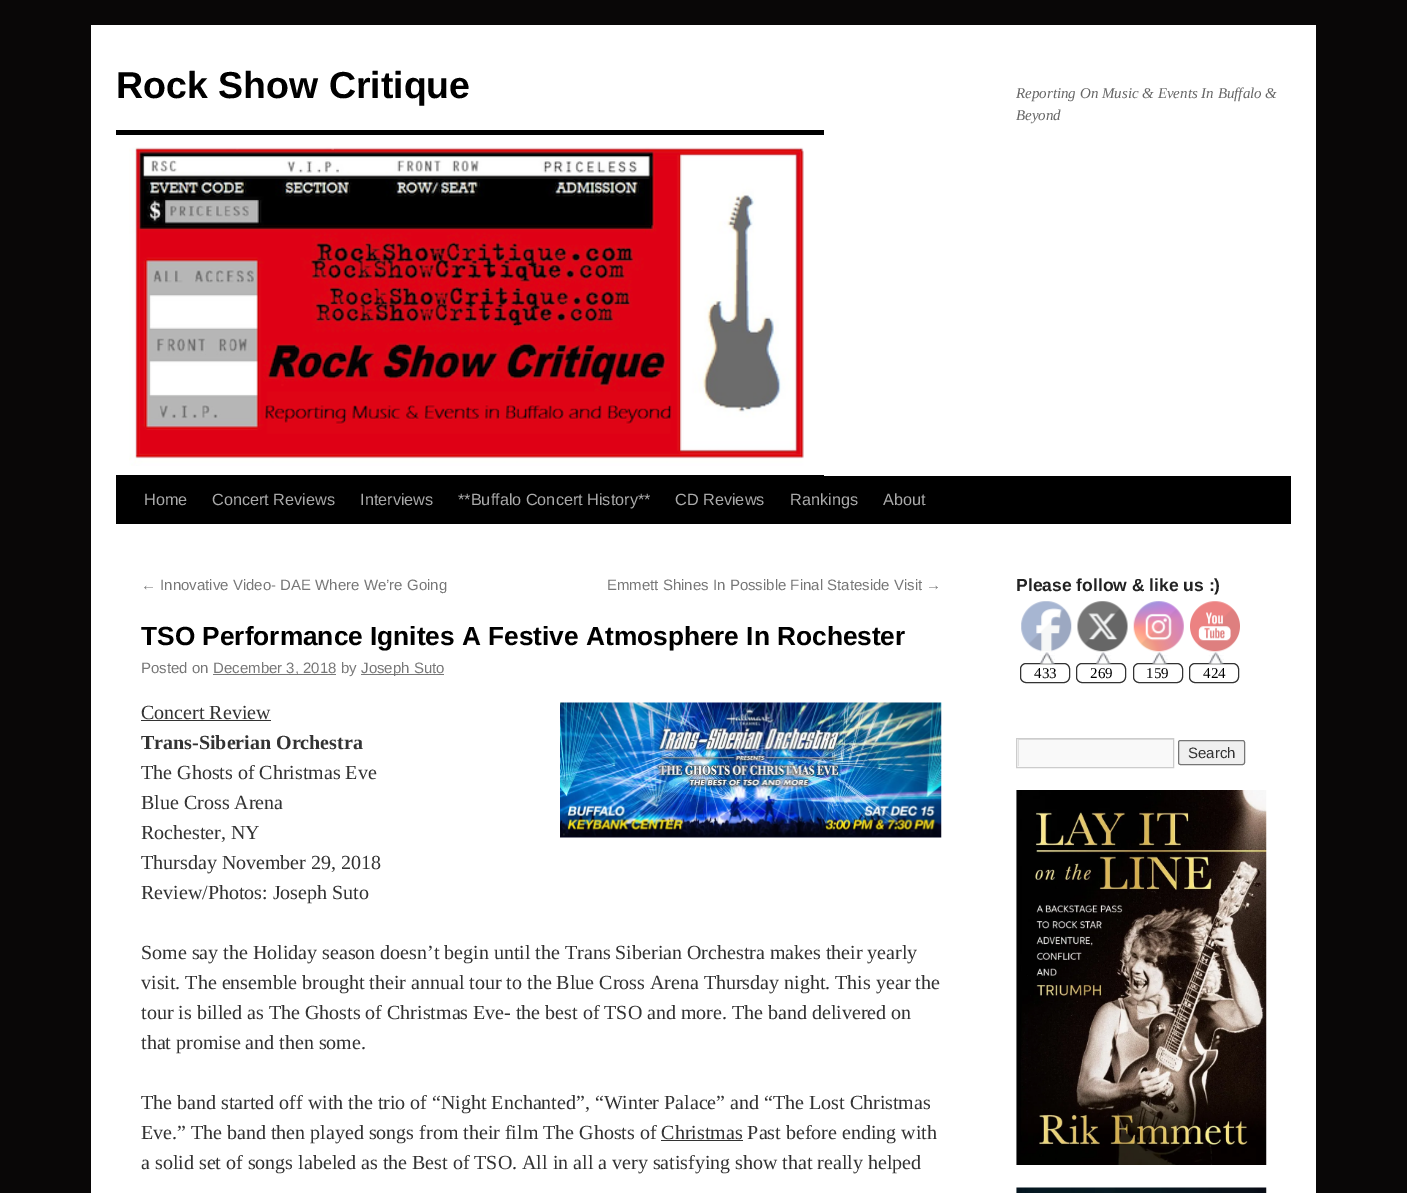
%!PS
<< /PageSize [1407 1193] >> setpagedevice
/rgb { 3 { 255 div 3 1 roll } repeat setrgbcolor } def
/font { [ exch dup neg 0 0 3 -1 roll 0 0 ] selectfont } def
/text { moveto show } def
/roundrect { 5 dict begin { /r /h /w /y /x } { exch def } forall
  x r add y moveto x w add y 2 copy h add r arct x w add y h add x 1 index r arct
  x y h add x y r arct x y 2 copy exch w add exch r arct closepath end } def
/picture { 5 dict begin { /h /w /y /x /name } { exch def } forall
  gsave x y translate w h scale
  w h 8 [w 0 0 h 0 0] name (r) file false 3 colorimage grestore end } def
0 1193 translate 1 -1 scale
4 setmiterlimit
9 7 7 rgb
0 0 1407 1193 rectfill
255 255 255 rgb
91 25 1225 1168 rectfill
0 0 0 rgb
116 130 708 5 rectfill
116 475 708 1 rectfill
(img_01.rgb) 129 147 675 319 picture
116 476 1175 48 rectfill
119 119 119 rgb
213 674 123 1 rectfill
361 674 83 1 rectfill
51 51 51 rgb
141 720 130 1 rectfill
(img_02.rgb) 560 702 382 136 picture
661 1140 82 1 rectfill
(img_03.rgb) 1021 601 51 51 picture
1020.5 663.5 49 19 5.5 roundrect stroke
(img_04.rgb) 1039 652 16 12 picture
(img_05.rgb) 1077 601 51 51 picture
1076.5 663.5 49 19 5.5 roundrect stroke
(img_06.rgb) 1096 652 16 12 picture
(img_07.rgb) 1133 601 51 51 picture
1133.5 663.5 49 19 5.5 roundrect stroke
(img_08.rgb) 1152 652 16 12 picture
(img_09.rgb) 1190 601 50 51 picture
1189.5 663.5 49 19 5.5 roundrect stroke
(img_10.rgb) 1208 652 16 12 picture
249 249 249 rgb
1017 739 156 28 rectfill
gsave
1018 739 155 27 rectclip
224 224 224 rgb
894 615 moveto 402 0 rlineto 0 275 rlineto -402 0 rlineto closepath 1019 740 moveto 155 0 rlineto 0 28 rlineto -155 0 rlineto closepath eofill
grestore
204 204 204 rgb
1016.5 738.5 157 29 rectstroke
239 239 239 rgb
1178.5 740.5 66 24 2 roundrect gsave fill grestore
118 118 118 rgb
stroke
(img_11.rgb) 1016 790 251 375 picture
(img_12.rgb) 1016 1187 251 6 picture
/LiberationSans-Bold 37.5 font
0 0 0 rgb
(Rock Show Critique) 116 98 text
/LiberationSerif-Italic 15 font
102 102 102 rgb
(Reporting On Music & Events In Buffalo &) 1016 98 text
(Beyond) 1016 120 text
/LiberationSans-Regular 16.25 font
170 170 170 rgb
(Home) 144 505 text
(Concert Reviews) 212 505 text
(Interviews) 360 505 text
(**Buffalo Concert History**) 458 505 text
(CD Reviews) 675 505 text
(Rankings) 790 505 text
(About) 883 505 text
/LiberationSans-Regular 15 font
119 119 119 rgb
(← Innovative Video- DAE Where We’re Going) 141 590 text
(Emmett Shines In Possible Final Stateside Visit →) 607 590 text
/LiberationSans-Bold 26.25 font
0 0 0 rgb
(TSO Performance Ignites A Festive Atmosphere In Rochester) 141 645 text
/LiberationSans-Regular 15 font
119 119 119 rgb
(Posted on) 141 673 text
(December 3, 2018 by) 213 673 text
(Joseph Suto) 361 673 text
/LiberationSerif-Regular 20 font
51 51 51 rgb
(Concert Review) 141 719 text
/LiberationSerif-Bold 20 font
(Trans-Siberian Orchestra) 141 749 text
/LiberationSerif-Regular 20 font
(The Ghosts of Christmas Eve) 141 779 text
(Blue Cross Arena) 141 809 text
(Rochester, NY) 141 839 text
(Thursday November 29, 2018) 141 869 text
(Review/Photos: Joseph Suto) 141 899 text
(Some say the Holiday season doesn’t begin until the Trans Siberian Orchestra makes their yearly) 141 959 text
(visit. The ensemble brought their annual tour to the Blue Cross Arena Thursday night. This year the) 141 989 text
(tour is billed as The Ghosts of Christmas Eve- the best of TSO and more. The band delivered on) 141 1019 text
(that promise and then some.) 141 1049 text
(The band started off with the trio of “Night Enchanted”, “Winter Palace” and “The Lost Christmas) 141 1109 text
(Eve.” The band then played songs from their film The Ghosts of Christmas Past before ending with) 141 1139 text
(a solid set of songs labeled as the Best of TSO. All in all a very satisfying show that really helped) 141 1169 text
/LiberationSans-Bold 17.5 font
34 34 34 rgb
(Please follow & like us :\)) 1016 591 text
/LiberationSerif-Regular 15 font
0 0 0 rgb
(433) 1034 678 text
(269) 1090 678 text
(159) 1146 678 text
(424) 1203 678 text
/LiberationSans-Regular 15 font
51 51 51 rgb
(Search) 1188 758 text
showpage
